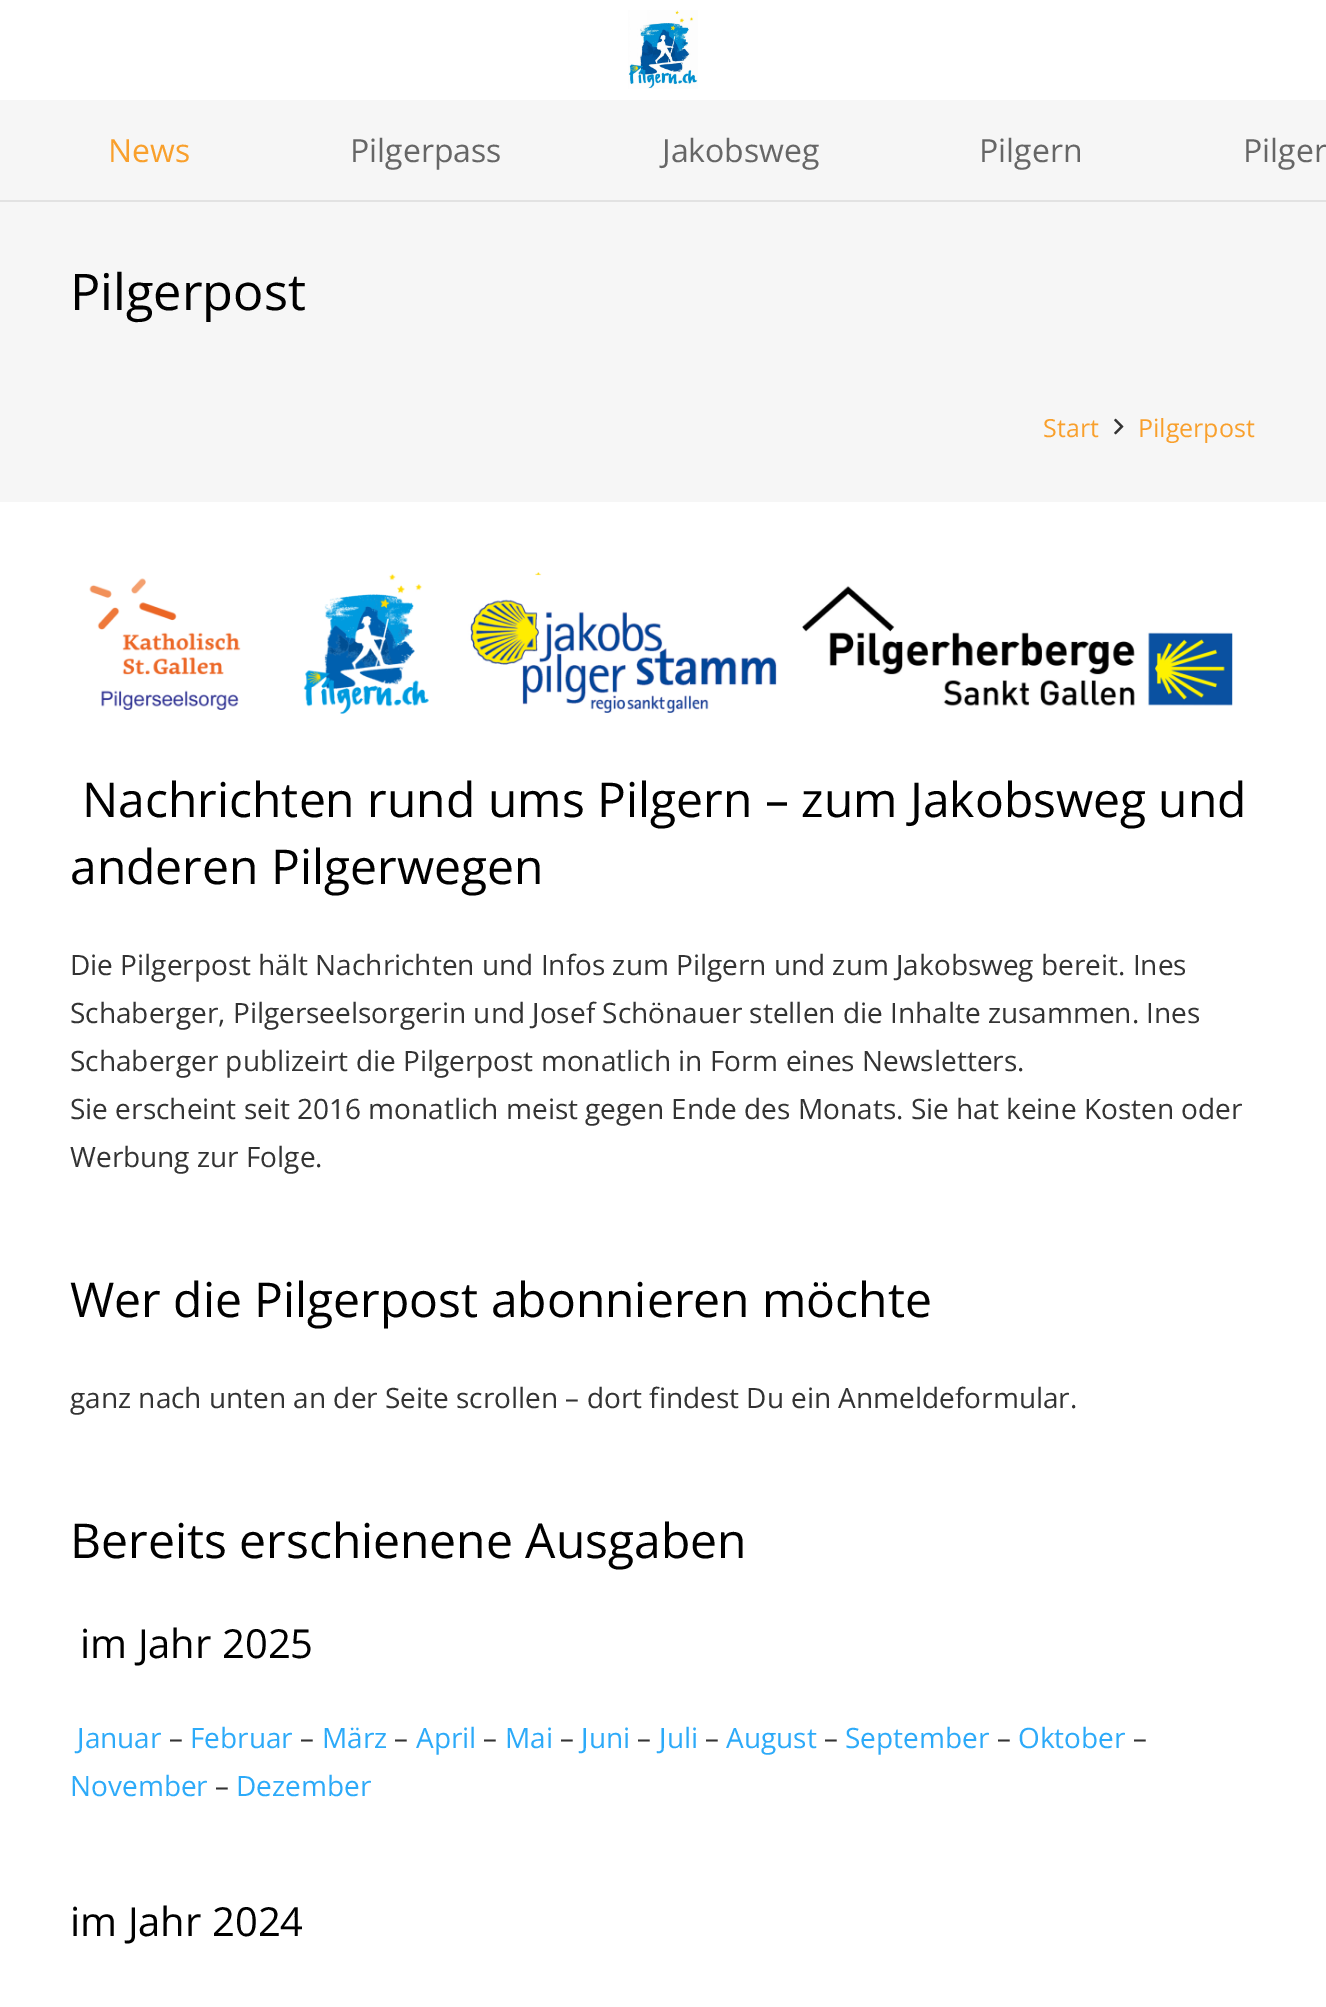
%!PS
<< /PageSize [1326 2007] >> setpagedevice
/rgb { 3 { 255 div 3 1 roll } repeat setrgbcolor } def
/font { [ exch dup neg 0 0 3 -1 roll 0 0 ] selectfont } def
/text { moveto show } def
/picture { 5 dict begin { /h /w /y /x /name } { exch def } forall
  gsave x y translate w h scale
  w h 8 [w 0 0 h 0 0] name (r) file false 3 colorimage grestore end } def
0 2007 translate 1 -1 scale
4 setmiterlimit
255 255 255 rgb
0 0 1326 2007 rectfill
(img_01.rgb) 628 10 70 79 picture
226 226 226 rgb
0 200 1326 2 rectfill
246 246 246 rgb
0 100 1326 100 rectfill
0 202 1326 300 rectfill
(img_02.rgb) 1114 418 10 17 picture
(img_03.rgb) 89 572 1144 142 picture
/OpenSans-Regular 32 font
249 160 44 rgb
(News) 108 162 text
102 102 102 rgb
(Pilgerpass) 350 162 text
(Jakobsweg) 662 162 text
(Pilgern) 979 162 text
(Pilger) 1243 162 text
/OpenSans-Regular 50.5 font
0 0 0 rgb
(Pilgerpost) 70 310 text
/OpenSans-Regular 25 font
249 160 44 rgb
(Start) 1043 437 text
(Pilgerpost) 1138 437 text
/OpenSans-Regular 48 font
0 0 0 rgb
(Nachrichten rund ums Pilgern – zum Jakobsweg und) 82 817 text
(anderen Pilgerwegen) 70 884 text
/OpenSans-Regular 28 font
51 51 51 rgb
(Die Pilgerpost hält Nachrichten und Infos zum Pilgern und zum Jakobsweg bereit. Ines) 70 975 text
(Schaberger, Pilgerseelsorgerin und Josef Schönauer stellen die Inhalte zusammen. Ines) 70 1023 text
(Schaberger publizeirt die Pilgerpost monatlich in Form eines Newsletters.) 70 1071 text
(Sie erscheint seit 2016 monatlich meist gegen Ende des Monats. Sie hat keine Kosten oder) 70 1119 text
(Werbung zur Folge.) 70 1167 text
/OpenSans-Regular 48 font
0 0 0 rgb
(Wer die Pilgerpost abonnieren möchte) 70 1317 text
/OpenSans-Regular 28 font
51 51 51 rgb
(ganz nach unten an der Seite scrollen – dort findest Du ein Anmeldeformular.) 70 1408 text
/OpenSans-Regular 48 font
0 0 0 rgb
(Bereits erschienene Ausgaben) 70 1558 text
/OpenSans-Regular 40 font
(im Jahr 2025) 80 1658 text
/OpenSans-Regular 28 font
44 170 249 rgb
(Januar) 77 1748 text
51 51 51 rgb
(–) 169 1748 text
44 170 249 rgb
(Februar) 190 1748 text
51 51 51 rgb
(–) 300 1748 text
44 170 249 rgb
(März) 322 1748 text
51 51 51 rgb
(–) 394 1748 text
44 170 249 rgb
(April) 416 1748 text
51 51 51 rgb
(–) 483 1748 text
44 170 249 rgb
(Mai) 505 1748 text
51 51 51 rgb
(–) 560 1748 text
44 170 249 rgb
(Juni) 581 1748 text
51 51 51 rgb
(–) 637 1748 text
44 170 249 rgb
(Juli) 659 1748 text
51 51 51 rgb
(–) 705 1748 text
44 170 249 rgb
(August) 726 1748 text
51 51 51 rgb
(–) 824 1748 text
44 170 249 rgb
(September) 845 1748 text
51 51 51 rgb
(–) 997 1748 text
44 170 249 rgb
(Oktober) 1018 1748 text
51 51 51 rgb
(–) 1133 1748 text
44 170 249 rgb
(November) 70 1796 text
51 51 51 rgb
(–) 215 1796 text
44 170 249 rgb
(Dezember) 236 1796 text
/OpenSans-Regular 40 font
0 0 0 rgb
(im Jahr 2024) 70 1936 text
showpage
